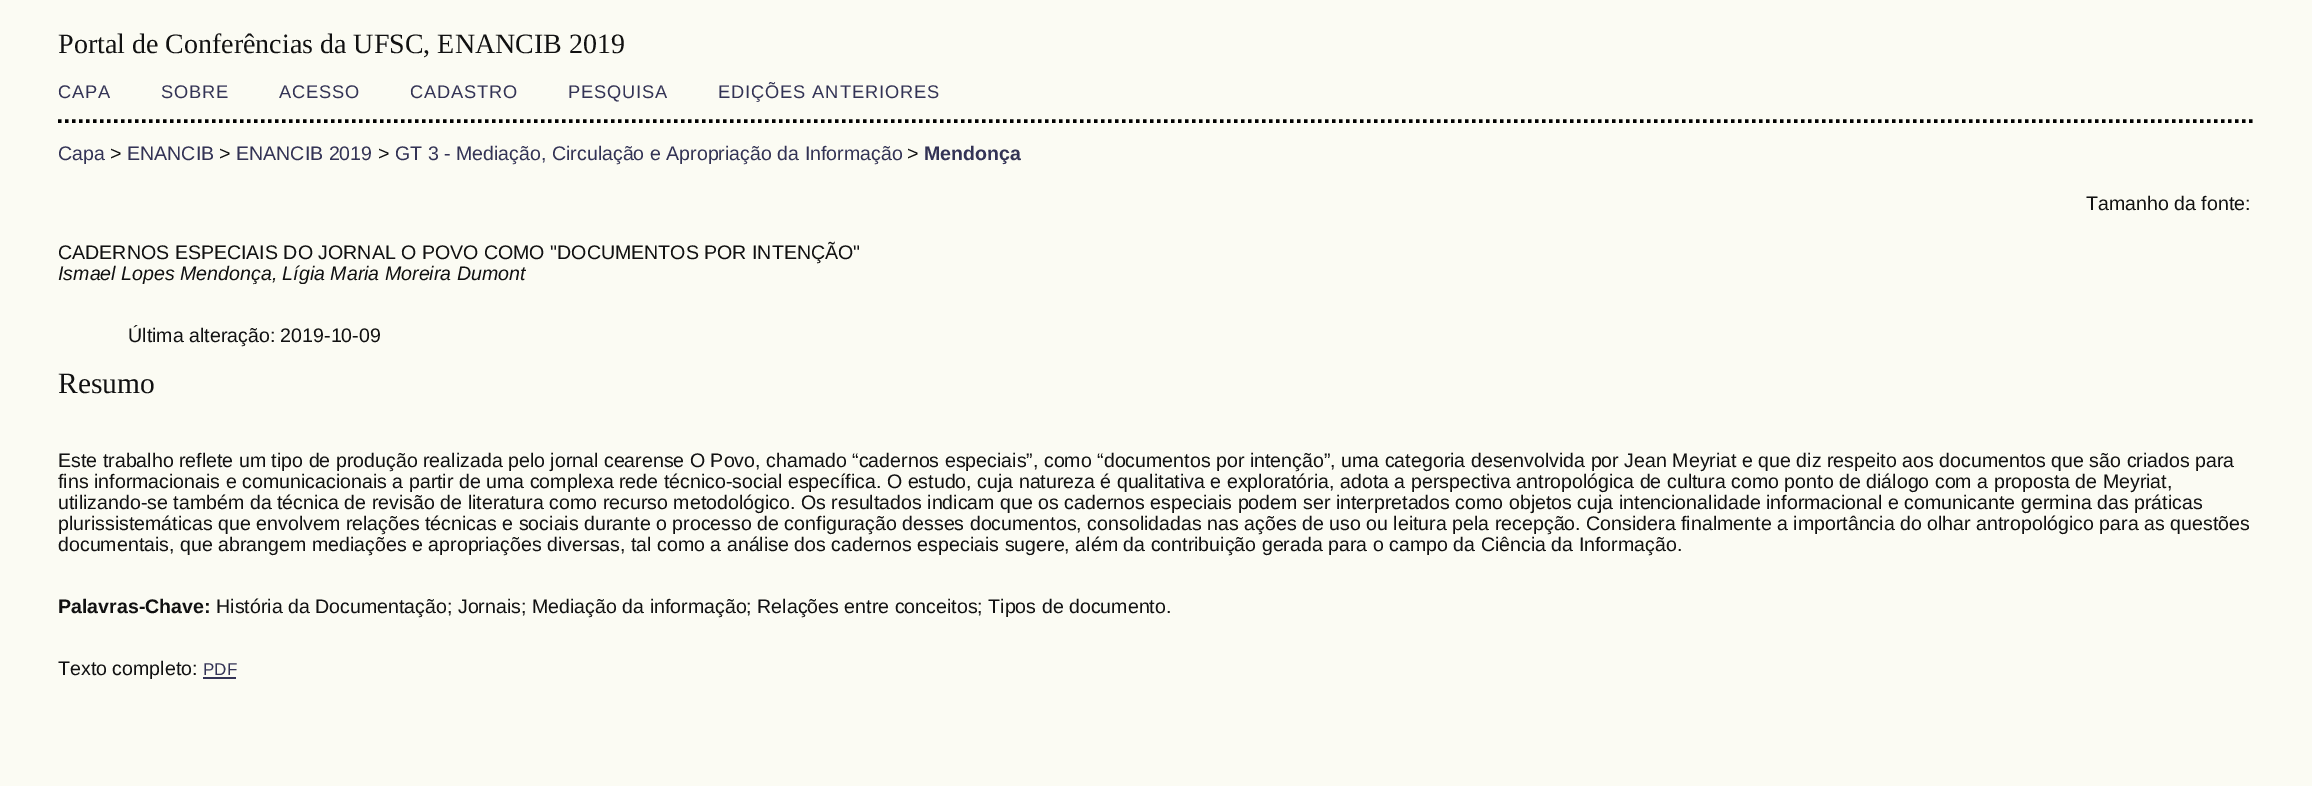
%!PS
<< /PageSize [2312 786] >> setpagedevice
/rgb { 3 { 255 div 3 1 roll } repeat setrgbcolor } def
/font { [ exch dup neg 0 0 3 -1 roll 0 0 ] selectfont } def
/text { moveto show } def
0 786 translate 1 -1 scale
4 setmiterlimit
251 251 243 rgb
0 0 2312 786 rectfill
0 0 0 rgb
3.5 setlinewidth
[3.5 3.5] 0 setdash
58 121 moveto 2198 0 rlineto stroke
51 51 85 rgb
203 677 33 2 rectfill
/LiberationSerif-Regular 28 font
17 17 17 rgb
(Portal de Conferências da UFSC, ENANCIB 2019) 58 53 text
/LiberationSans-Regular 18.25 font
51 51 85 rgb
58 98 moveto 0.9 0 (CAPA) ashow
161 98 moveto 0.9 0 (SOBRE) ashow
279 98 moveto 0.9 0 (ACESSO) ashow
410 98 moveto 0.9 0 (CADASTRO) ashow
568 98 moveto 0.9 0 (PESQUISA) ashow
718 98 moveto 0.9 0 (EDIÇÕES ANTERIORES) ashow
/LiberationSans-Regular 19.6 font
(Capa) 58 160 text
17 17 17 rgb
(>) 110 160 text
51 51 85 rgb
(ENANCIB) 127 160 text
17 17 17 rgb
(>) 219 160 text
51 51 85 rgb
(ENANCIB 2019) 236 160 text
17 17 17 rgb
(>) 378 160 text
51 51 85 rgb
(GT 3 - Mediação, Circulação e Apropriação da Informação) 395 160 text
17 17 17 rgb
(>) 907 160 text
/LiberationSans-Bold 19.6 font
51 51 85 rgb
(Mendonça) 924 160 text
/LiberationSans-Regular 19.6 font
17 17 17 rgb
(Tamanho da fonte:) 2086 210 text
(CADERNOS ESPECIAIS DO JORNAL O POVO COMO "DOCUMENTOS POR INTENÇÃO") 58 259 text
/LiberationSans-Italic 19.6 font
(Ismael Lopes Mendonça, Lígia Maria Moreira Dumont) 58 280 text
/LiberationSans-Regular 19.6 font
(Última alteração: 2019-10-09) 128 342 text
/LiberationSerif-Regular 29.5 font
(Resumo) 58 393 text
/LiberationSans-Regular 19.6 font
(Este trabalho reflete um tipo de produção realizada pelo jornal cearense O Povo, chamado “cadernos especiais”, como “documentos por intenção”, uma categoria desenvolvida por Jean Meyriat e que diz respeito aos documentos que são criados para) 58 467 text
(fins informacionais e comunicacionais a partir de uma complexa rede técnico-social específica. O estudo, cuja natureza é qualitativa e exploratória, adota a perspectiva antropológica de cultura como ponto de diálogo com a proposta de Meyriat,) 58 488 text
(utilizando-se também da técnica de revisão de literatura como recurso metodológico. Os resultados indicam que os cadernos especiais podem ser interpretados como objetos cuja intencionalidade informacional e comunicante germina das práticas) 58 509 text
(plurissistemáticas que envolvem relações técnicas e sociais durante o processo de configuração desses documentos, consolidadas nas ações de uso ou leitura pela recepção. Considera finalmente a importância do olhar antropológico para as questões) 58 530 text
(documentais, que abrangem mediações e apropriações diversas, tal como a análise dos cadernos especiais sugere, além da contribuição gerada para o campo da Ciência da Informação.) 58 551 text
/LiberationSans-Bold 19.6 font
(Palavras-Chave:) 58 613 text
/LiberationSans-Regular 19.6 font
(História da Documentação; Jornais; Mediação da informação; Relações entre conceitos; Tipos de documento.) 216 613 text
(Texto completo:) 58 675 text
/LiberationSans-Regular 17 font
51 51 85 rgb
(PDF) 203 675 text
showpage
